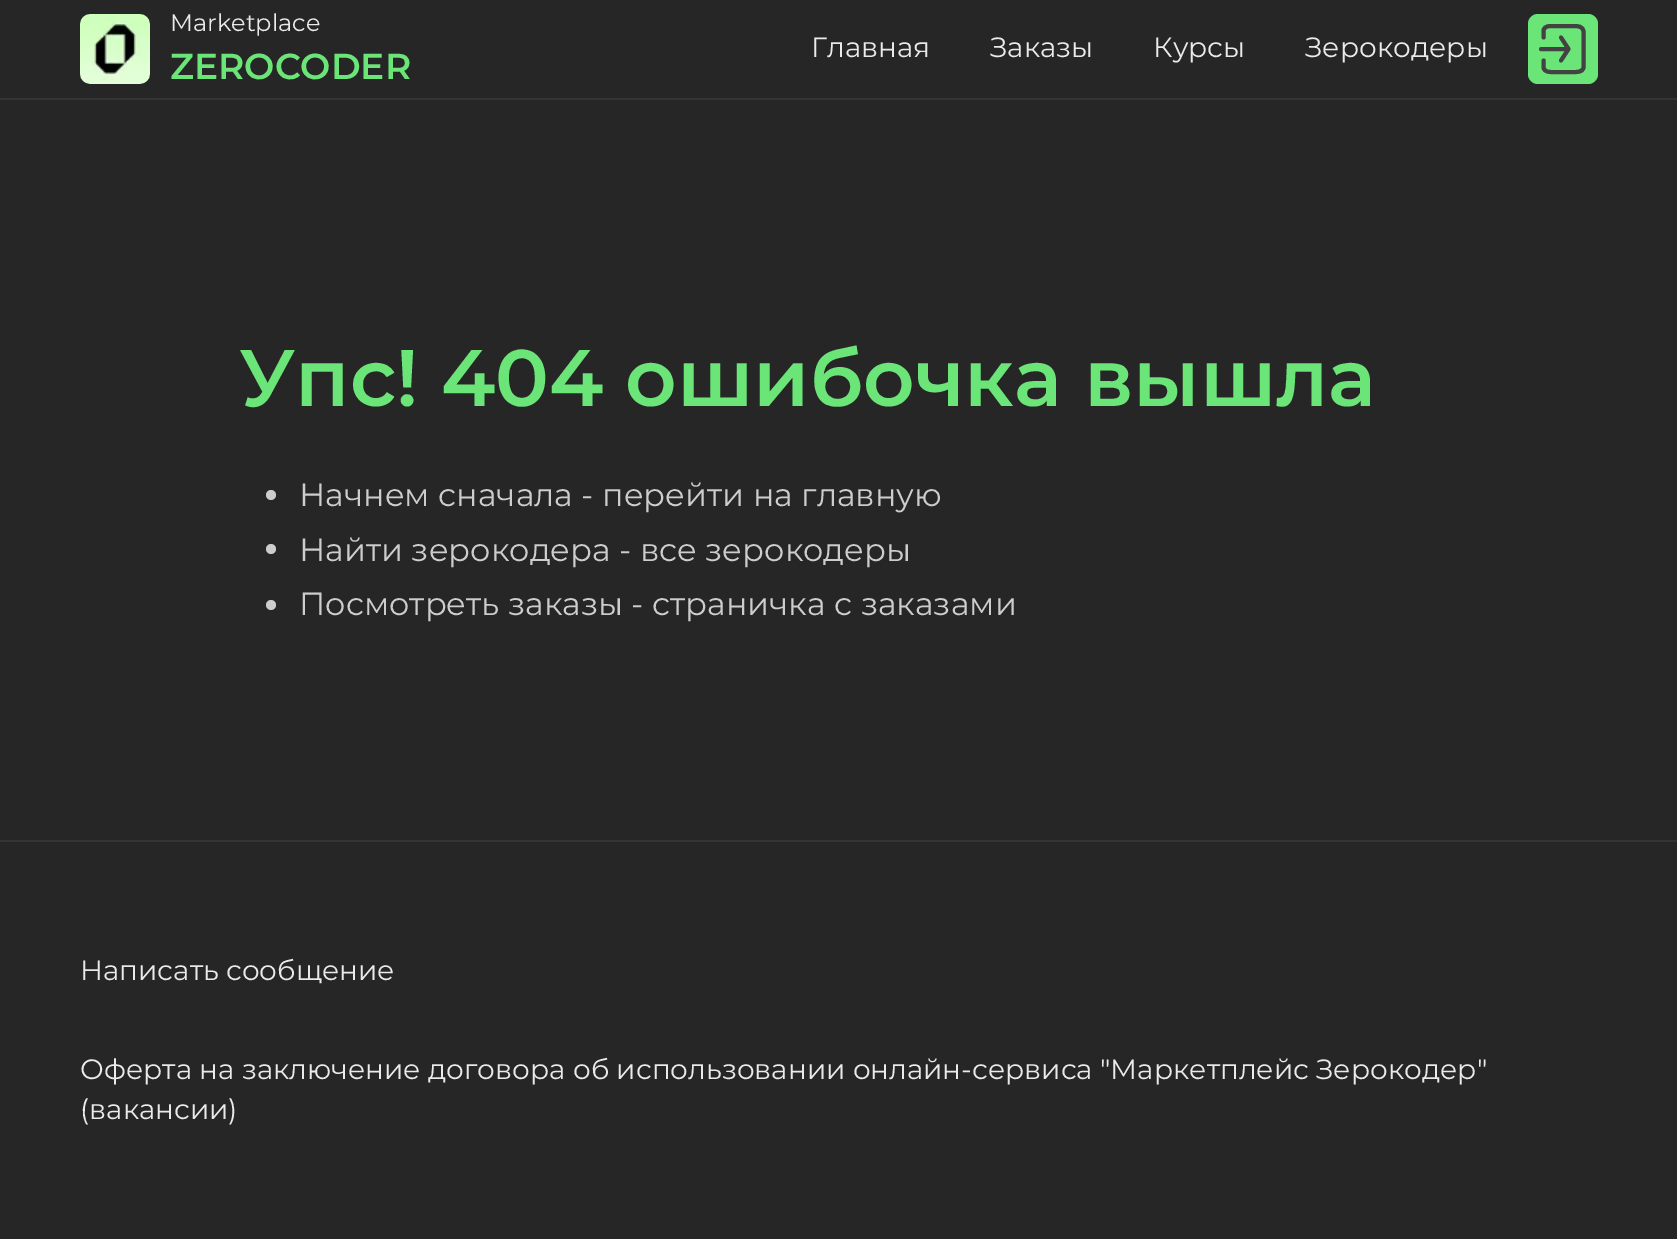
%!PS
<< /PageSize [1677 1239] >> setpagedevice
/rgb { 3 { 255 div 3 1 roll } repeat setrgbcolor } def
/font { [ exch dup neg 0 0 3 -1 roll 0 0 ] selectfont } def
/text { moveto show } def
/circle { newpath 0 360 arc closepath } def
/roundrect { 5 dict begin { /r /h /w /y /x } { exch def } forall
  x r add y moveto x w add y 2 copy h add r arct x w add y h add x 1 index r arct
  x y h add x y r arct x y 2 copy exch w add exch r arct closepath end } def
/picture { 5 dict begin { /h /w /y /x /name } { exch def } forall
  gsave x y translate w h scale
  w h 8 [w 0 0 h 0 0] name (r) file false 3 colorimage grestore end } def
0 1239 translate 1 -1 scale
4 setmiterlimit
38 38 38 rgb
0 0 1677 1239 rectfill
52 52 52 rgb
0 98 1677 2 rectfill
(img_01.rgb) 80 14 70 70 picture
107 228 120 rgb
1528 14 70 70 10 roundrect fill
66 66 66 rgb
4 setlinewidth
1 setlinecap
1 setlinejoin
1543.5 37.5 moveto 0 -7 rlineto 1 -5 6 -4.5 10.5 -4.5 rcurveto 19 0 rlineto 4.5 0 10.5 0 10.5 6 rcurveto 0 35.5 rlineto -1 5 -6.5 4.5 -10.5 4.5 rcurveto -19 0 rlineto -4.5 0 -9.5 0.5 -10.5 -4.5 rcurveto 0 -7 rlineto 1561 60.5 moveto 7.5 -11.5 rlineto -7.5 -11.5 rlineto 1541 49 moveto 26 0 rlineto stroke
205 205 205 rgb
271 495 5 circle fill
271 549 5 circle fill
271 605 5 circle fill
52 52 52 rgb
0 840 1677 2 rectfill
/Montserrat-Regular 24 font
234 234 234 rgb
(Marketplace) 170 31 text
/Montserrat-SemiBold 36 font
107 228 120 rgb
(ZEROCODER) 170 79 text
/Montserrat-Regular 28 font
234 234 234 rgb
(Главная) 811 57 text
(Заказы) 990 57 text
(Курсы) 1153 57 text
(Зерокодеры) 1305 57 text
/Montserrat-SemiBold 80 font
107 228 120 rgb
(Упс! 404 ошибочка вышла) 239 406 text
/Montserrat-Regular 32 font
205 205 205 rgb
(Начнем сначала - перейти на главную) 299 506 text
(Найти зерокодера - все зерокодеры) 299 561 text
(Посмотреть заказы - страничка с заказами) 299 615 text
/Montserrat-Regular 28 font
234 234 234 rgb
(Написать сообщение) 80 980 text
(Оферта на заключение договора об использовании онлайн-сервиса "Маркетплейс Зерокодер") 80 1079 text
(\(вакансии\)) 80 1119 text
showpage
